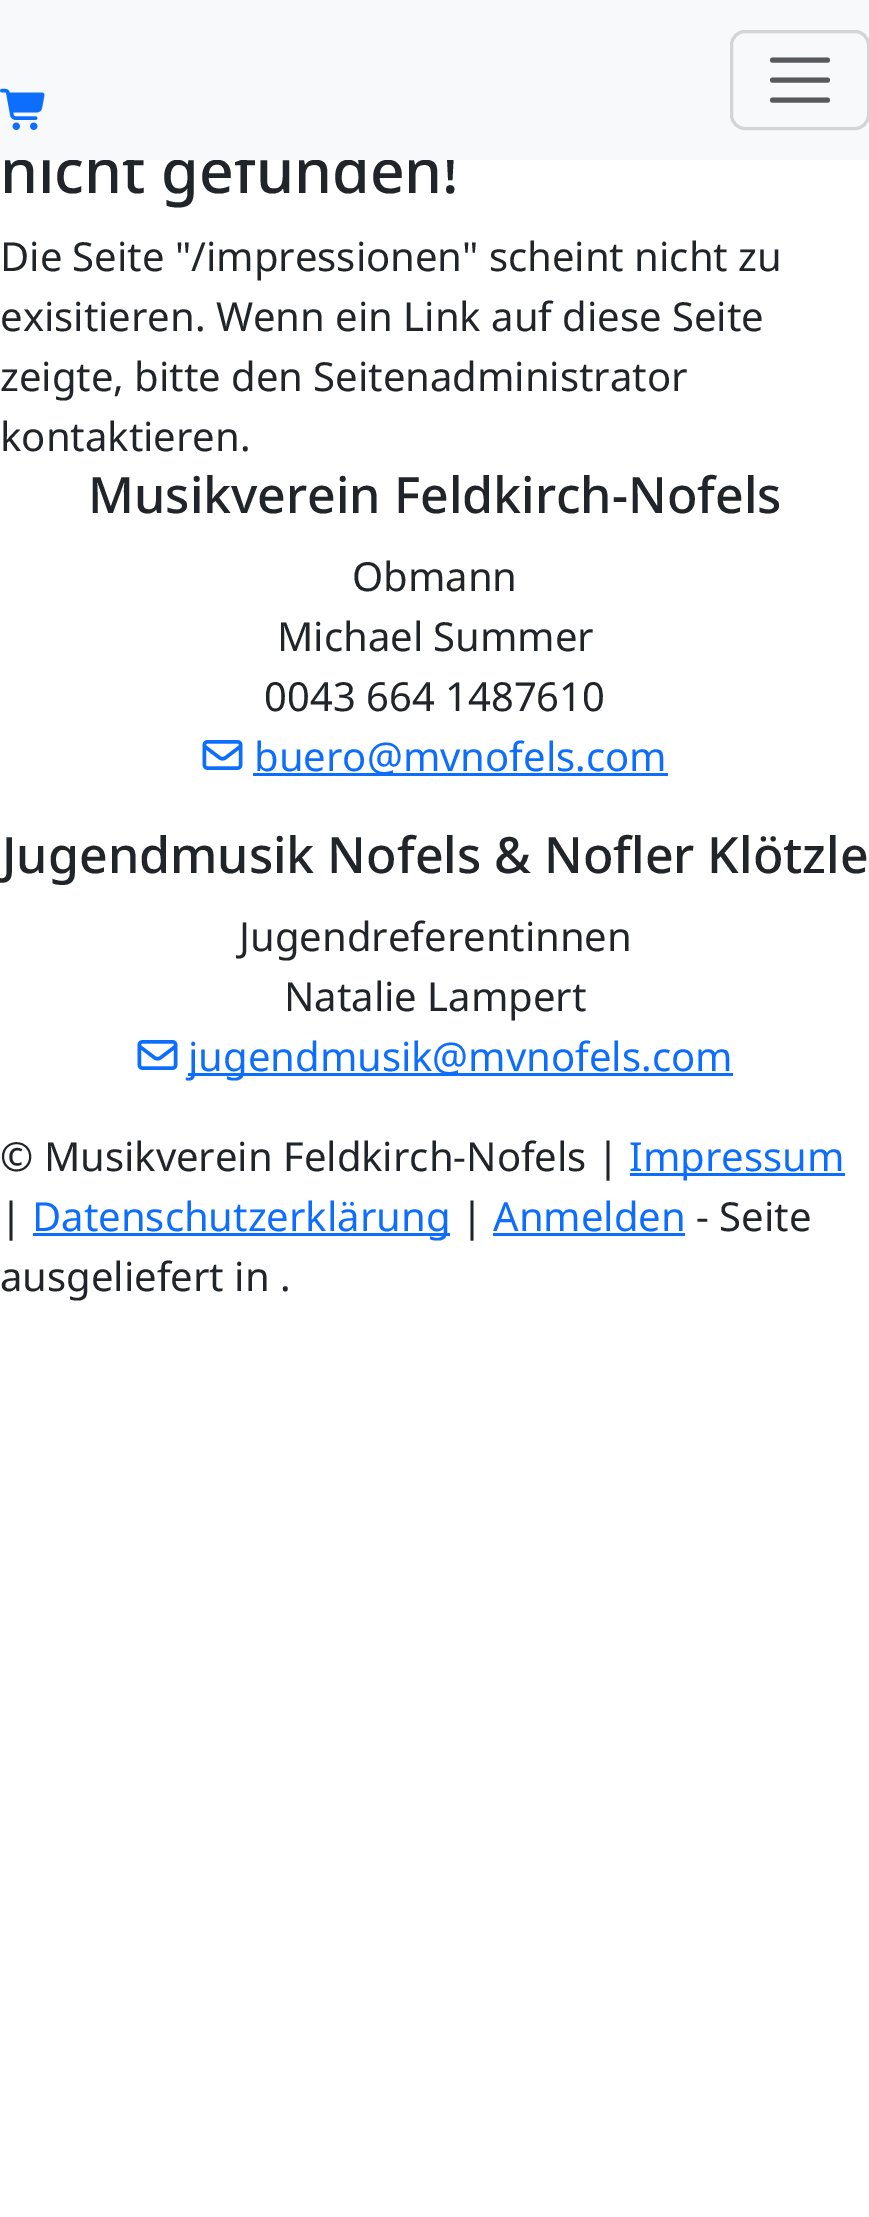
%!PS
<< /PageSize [869 2217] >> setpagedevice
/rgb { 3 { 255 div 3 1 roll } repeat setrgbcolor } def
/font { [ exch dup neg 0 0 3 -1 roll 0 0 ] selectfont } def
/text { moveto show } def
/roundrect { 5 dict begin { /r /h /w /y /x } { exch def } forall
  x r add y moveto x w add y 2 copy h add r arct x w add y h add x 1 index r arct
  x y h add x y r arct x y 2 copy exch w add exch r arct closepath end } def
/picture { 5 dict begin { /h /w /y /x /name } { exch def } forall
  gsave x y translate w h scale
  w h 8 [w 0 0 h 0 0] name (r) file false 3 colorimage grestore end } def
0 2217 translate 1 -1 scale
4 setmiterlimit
255 255 255 rgb
0 0 869 2217 rectfill
(img_02.rgb) 202 740 41 30 picture
13 110 253 rgb
253 773 415 3 rectfill
(img_02.rgb) 137 1040 41 30 picture
188 1073 545 3 rectfill
630 1173 215 3 rectfill
33 1233 417 3 rectfill
493 1233 192 3 rectfill
/NotoSans-Medium 60.75 font
33 37 41 rgb
(nicht gefunden!) 0 193 text
248 249 250 rgb
0 0 869 160 rectfill
211 212 213 rgb
3 setlinewidth
731.5 31.5 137 97 13.5 roundrect stroke
87 90 93 rgb
5 setlinewidth
1 setlinecap
772.5 60 moveto 55 0 rlineto 772.5 80 moveto 55 0 rlineto 772.5 100 moveto 55 0 rlineto stroke
(img_01.rgb) 0 88 45 42 picture
/NotoSans-Regular 40 font
33 37 41 rgb
(Die Seite "/impressionen" scheint nicht zu) 0 271 text
(exisitieren. Wenn ein Link auf diese Seite) 0 331 text
(zeigte, bitte den Seitenadministrator) 0 391 text
(kontaktieren.) 0 451 text
/NotoSans-Medium 50 font
(Musikverein Feldkirch-Nofels) 88 513 text
/NotoSans-Regular 40 font
(Obmann) 352 591 text
(Michael Summer) 277 651 text
(0043 664 1487610) 264 711 text
13 110 253 rgb
(buero@mvnofels.com) 254 771 text
/NotoSans-Medium 50 font
33 37 41 rgb
(Jugendmusik Nofels & Nofler Klötzle) 2 873 text
/NotoSans-Regular 40 font
(Jugendreferentinnen) 239 951 text
(Natalie Lampert) 284 1011 text
13 110 253 rgb
(jugendmusik@mvnofels.com) 188 1071 text
33 37 41 rgb
(© Musikverein Feldkirch-Nofels |) 0 1171 text
13 110 253 rgb
(Impressum) 629 1171 text
33 37 41 rgb
(|) 0 1231 text
13 110 253 rgb
(Datenschutzerklärung) 32 1231 text
33 37 41 rgb
(|) 461 1231 text
13 110 253 rgb
(Anmelden) 493 1231 text
33 37 41 rgb
(- Seite) 696 1231 text
(ausgeliefert in .) 0 1291 text
showpage
